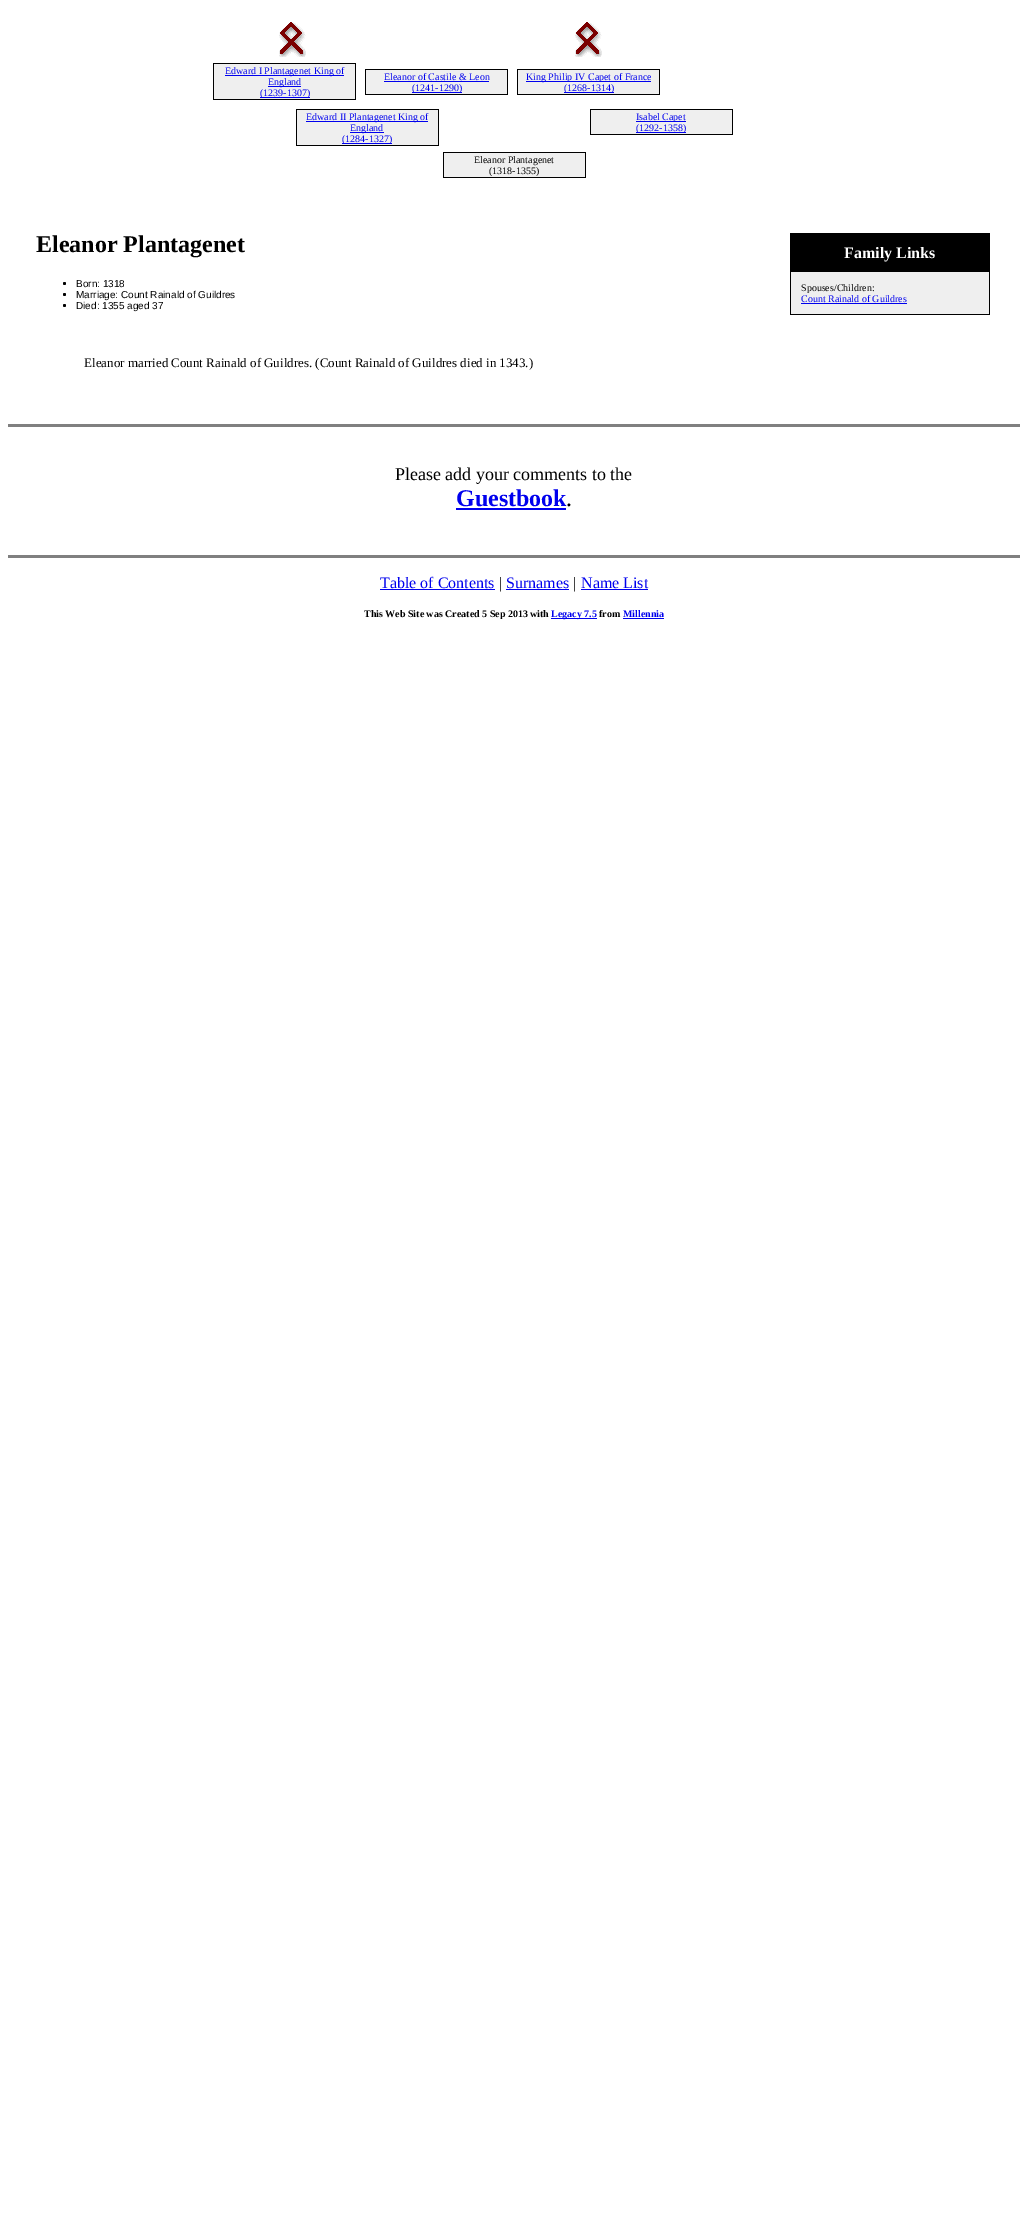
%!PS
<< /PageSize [1028 2227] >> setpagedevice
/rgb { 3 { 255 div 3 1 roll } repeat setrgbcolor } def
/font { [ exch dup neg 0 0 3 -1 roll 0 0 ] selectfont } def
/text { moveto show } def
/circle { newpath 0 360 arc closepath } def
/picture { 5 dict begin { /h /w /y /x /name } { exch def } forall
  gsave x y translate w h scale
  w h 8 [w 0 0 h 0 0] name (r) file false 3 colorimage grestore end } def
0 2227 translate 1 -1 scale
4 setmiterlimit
255 255 255 rgb
0 0 1028 2227 rectfill
(img_01.rgb) 279 22 27 35 picture
(img_01.rgb) 575 22 27 35 picture
0 0 0 rgb
213 63 143 37 rectfill
239 239 239 rgb
214 64 141 35 rectfill
0 0 238 rgb
225 75 119 1 rectfill
268 86 33 1 rectfill
260 97 50 1 rectfill
0 0 0 rgb
365 69 143 26 rectfill
239 239 239 rgb
366 70 141 24 rectfill
0 0 238 rgb
384 81 105 1 rectfill
412 92 50 1 rectfill
0 0 0 rgb
517 69 143 26 rectfill
239 239 239 rgb
518 70 141 24 rectfill
0 0 238 rgb
526 81 125 1 rectfill
564 92 50 1 rectfill
0 0 0 rgb
296 109 143 37 rectfill
239 239 239 rgb
297 110 141 35 rectfill
0 0 238 rgb
306 121 122 1 rectfill
350 132 34 1 rectfill
342 143 50 1 rectfill
0 0 0 rgb
590 109 143 26 rectfill
239 239 239 rgb
591 110 141 24 rectfill
0 0 238 rgb
636 121 50 1 rectfill
636 132 50 1 rectfill
0 0 0 rgb
443 152 143 26 rectfill
239 239 239 rgb
444 153 141 24 rectfill
0 0 0 rgb
790 233 200 82 rectfill
239 239 239 rgb
791 272 198 42 rectfill
0 0 238 rgb
801 303 106 1 rectfill
0 0 0 rgb
64.5 283.5 1.5 circle fill
64.5 294.5 1.5 circle fill
64.5 305.5 1.5 circle fill
128 128 128 rgb
8 424 1012 3 rectfill
0 0 238 rgb
456 508 110 2 rectfill
128 128 128 rgb
8 555 1012 3 rectfill
0 0 238 rgb
380 589 115 1 rectfill
506 589 63 1 rectfill
581 589 67 1 rectfill
551 618 46 1 rectfill
623 618 41 1 rectfill
/LiberationSerif-Regular 10 font
(Edward I Plantagenet King of) 225 74 text
(England) 268 85 text
(\(1239-1307\)) 260 96 text
(Eleanor of Castile & Leon) 384 80 text
(\(1241-1290\)) 412 91 text
(King Philip IV Capet of France) 526 80 text
(\(1268-1314\)) 564 91 text
(Edward II Plantagenet King of) 306 120 text
(England) 350 131 text
(\(1284-1327\)) 342 142 text
(Isabel Capet) 636 120 text
(\(1292-1358\)) 636 131 text
0 0 0 rgb
(Eleanor Plantagenet) 474 163 text
(\(1318-1355\)) 489 174 text
/LiberationSerif-Bold 24 font
(Eleanor Plantagenet) 36 252 text
/LiberationSerif-Bold 16 font
255 255 255 rgb
(Family Links) 844 258 text
/LiberationSerif-Regular 10 font
0 0 0 rgb
(Spouses/Children:) 801 291 text
0 0 238 rgb
(Count Rainald of Guildres) 801 302 text
/LiberationSans-Regular 10 font
0 0 0 rgb
(Born: 1318) 76 287 text
(Marriage: Count Rainald of Guildres) 76 298 text
(Died: 1355 aged 37) 76 309 text
/LiberationSerif-Regular 13 font
(Eleanor married Count Rainald of Guildres. \(Count Rainald of Guildres died in 1343.\)) 84 367 text
/LiberationSerif-Regular 18 font
(Please add your comments to the) 395 480 text
/LiberationSerif-Bold 24 font
0 0 238 rgb
(Guestbook) 456 506 text
/LiberationSerif-Regular 24 font
0 0 0 rgb
(.) 566 506 text
/LiberationSerif-Regular 16 font
0 0 238 rgb
(Table of Contents) 380 588 text
0 0 0 rgb
(|) 499 588 text
0 0 238 rgb
(Surnames) 506 588 text
0 0 0 rgb
(|) 573 588 text
0 0 238 rgb
(Name List) 581 588 text
/LiberationSerif-Bold 10 font
0 0 0 rgb
(This Web Site was Created 5 Sep 2013 with) 364 617 text
0 0 238 rgb
(Legacy 7.5) 551 617 text
0 0 0 rgb
(from) 599 617 text
0 0 238 rgb
(Millennia) 623 617 text
showpage
